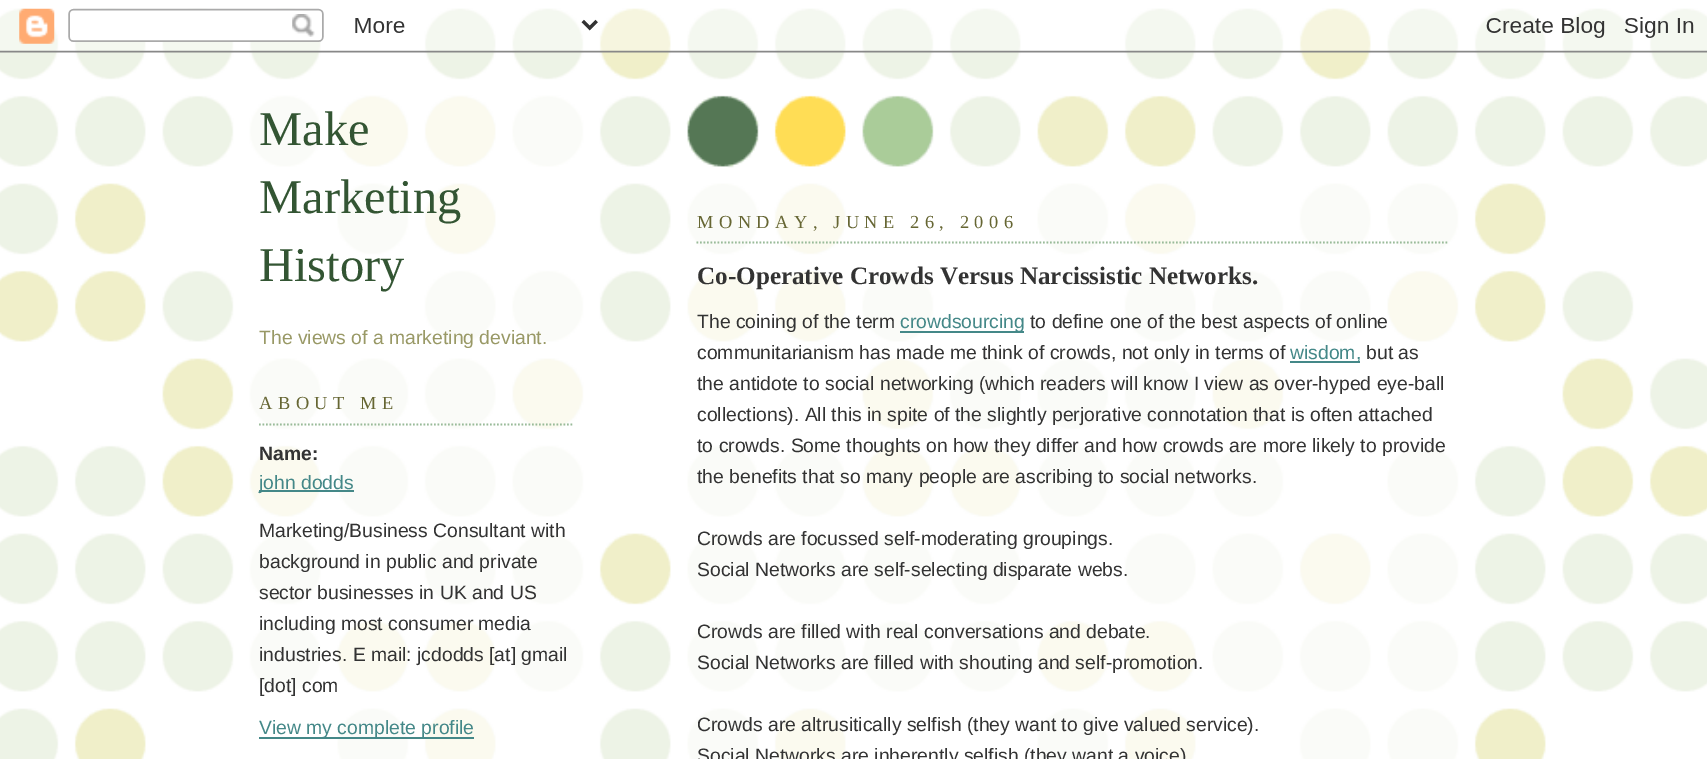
%!PS
<< /PageSize [1707 759] >> setpagedevice
/rgb { 3 { 255 div 3 1 roll } repeat setrgbcolor } def
/font { [ exch dup neg 0 0 3 -1 roll 0 0 ] selectfont } def
/text { moveto show } def
/picture { 5 dict begin { /h /w /y /x /name } { exch def } forall
  gsave x y translate w h scale
  w h 8 [w 0 0 h 0 0] name (r) file false 3 colorimage grestore end } def
0 759 translate 1 -1 scale
4 setmiterlimit
255 255 255 rgb
0 0 1707 759 rectfill
(img_01.rgb) 0 8 1707 751 picture
(img_02.rgb) 0 8 1707 45 picture
(img_03.rgb) 686 95 248 73 picture
(img_04.rgb) 250 96 334 663 picture
153 187 153 rgb
1.8 setlinewidth
[1.75 1.75] 0 setdash
259 424.5 moveto 315 0 rlineto stroke
68 136 136 rgb
259 490 95 2 rectfill
259 737 215 2 rectfill
(img_05.rgb) 687 183 772 576 picture
153 187 153 rgb
696.5 242.5 moveto 752.5 0 rlineto stroke
68 136 136 rgb
900 331 124 2 rectfill
1290 361 70 2 rectfill
/LiberationSerif-Regular 48.5 font
51 85 51 rgb
(Make) 259 145 text
(Marketing) 259 213 text
(History) 259 281 text
/LiberationSans-Regular 19.35 font
153 153 102 rgb
(The views of a marketing deviant.) 259 344 text
/LiberationSerif-Regular 18.4 font
102 102 51 rgb
259 409 moveto 5.5 0 (ABOUT ME) ashow
/LiberationSans-Bold 19.35 font
51 51 51 rgb
(Name:) 259 460 text
/LiberationSans-Regular 19.35 font
68 136 136 rgb
(john dodds) 259 489 text
51 51 51 rgb
(Marketing/Business Consultant with) 259 537 text
(background in public and private) 259 568 text
(sector businesses in UK and US) 259 599 text
(including most consumer media) 259 630 text
(industries. E mail: jcdodds [at] gmail) 259 661 text
([dot] com) 259 692 text
68 136 136 rgb
(View my complete profile) 259 734 text
/LiberationSerif-Regular 18.4 font
102 102 51 rgb
697 228 moveto 5.5 0 (MONDAY, JUNE 26, 2006) ashow
/LiberationSerif-Bold 25.1 font
51 51 51 rgb
(Co-Operative Crowds Versus Narcissistic Networks.) 697 284 text
/LiberationSans-Regular 19.35 font
(The coining of the term) 697 328 text
68 136 136 rgb
(crowdsourcing) 900 328 text
51 51 51 rgb
(to define one of the best aspects of online) 1030 328 text
(communitarianism has made me think of crowds, not only in terms of) 697 359 text
68 136 136 rgb
(wisdom,) 1290 359 text
51 51 51 rgb
(but as) 1366 359 text
(the antidote to social networking \(which readers will know I view as over-hyped eye-ball) 697 390 text
(collections\). All this in spite of the slightly perjorative connotation that is often attached) 697 421 text
(to crowds. Some thoughts on how they differ and how crowds are more likely to provide) 697 452 text
(the benefits that so many people are ascribing to social networks.) 697 483 text
(Crowds are focussed self-moderating groupings.) 697 545 text
(Social Networks are self-selecting disparate webs.) 697 576 text
(Crowds are filled with real conversations and debate.) 697 638 text
(Social Networks are filled with shouting and self-promotion.) 697 669 text
(Crowds are altrusitically selfish \(they want to give valued service\).) 697 731 text
(Social Networks are inherently selfish \(they want a voice\)) 697 762 text
showpage
